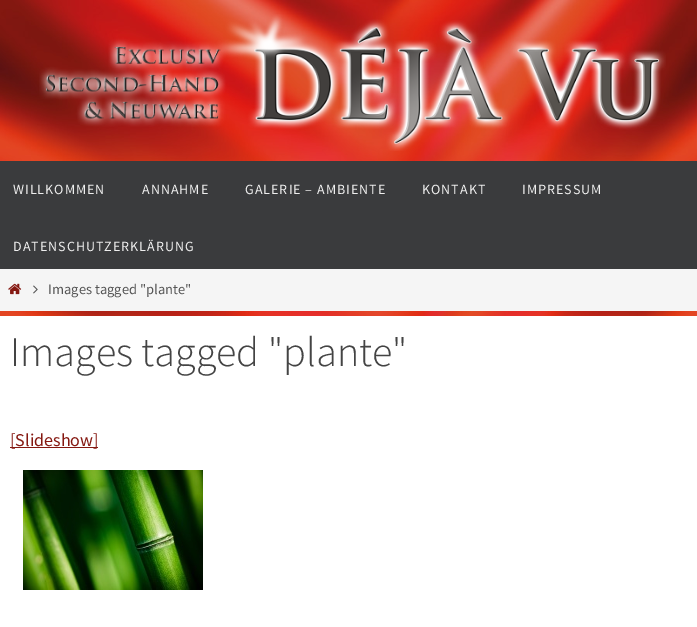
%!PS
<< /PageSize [697 627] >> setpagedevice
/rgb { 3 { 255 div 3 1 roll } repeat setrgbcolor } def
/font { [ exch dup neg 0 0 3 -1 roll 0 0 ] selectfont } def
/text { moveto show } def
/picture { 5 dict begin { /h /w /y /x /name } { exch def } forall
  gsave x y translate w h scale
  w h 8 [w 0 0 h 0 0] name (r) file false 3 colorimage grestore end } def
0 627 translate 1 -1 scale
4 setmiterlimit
255 255 255 rgb
0 0 697 627 rectfill
(img_01.rgb) 0 0 697 316 picture
(img_02.rgb) 39 14 627 137 picture
58 59 61 rgb
0 161 697 108 rectfill
245 245 245 rgb
0 269 697 42 rectfill
(img_03.rgb) 8 283 14 12 picture
(img_04.rgb) 33 285 5 9 picture
133 24 17 rgb
10 447 88 1 rectfill
(img_05.rgb) 23 470 180 120 picture
/SourceSansPro-Regular 14 font
238 238 238 rgb
13 194 moveto 1 0 (WILLKOMMEN) ashow
142 194 moveto 1 0 (ANNAHME) ashow
245 194 moveto 1 0 (GALERIE – AMBIENTE) ashow
422 194 moveto 1 0 (KONTAKT) ashow
522 194 moveto 1 0 (IMPRESSUM) ashow
13 251 moveto 1 0 (DATENSCHUTZERKLÄRUNG) ashow
/SourceSansPro-Regular 14.5 font
85 85 85 rgb
(Images tagged "plante") 48 294 text
/SourceSansPro-Light 42 font
68 68 68 rgb
(Images tagged "plante") 10 366 text
/SourceSansPro-Regular 18 font
133 24 17 rgb
([Slideshow]) 10 446 text
showpage
